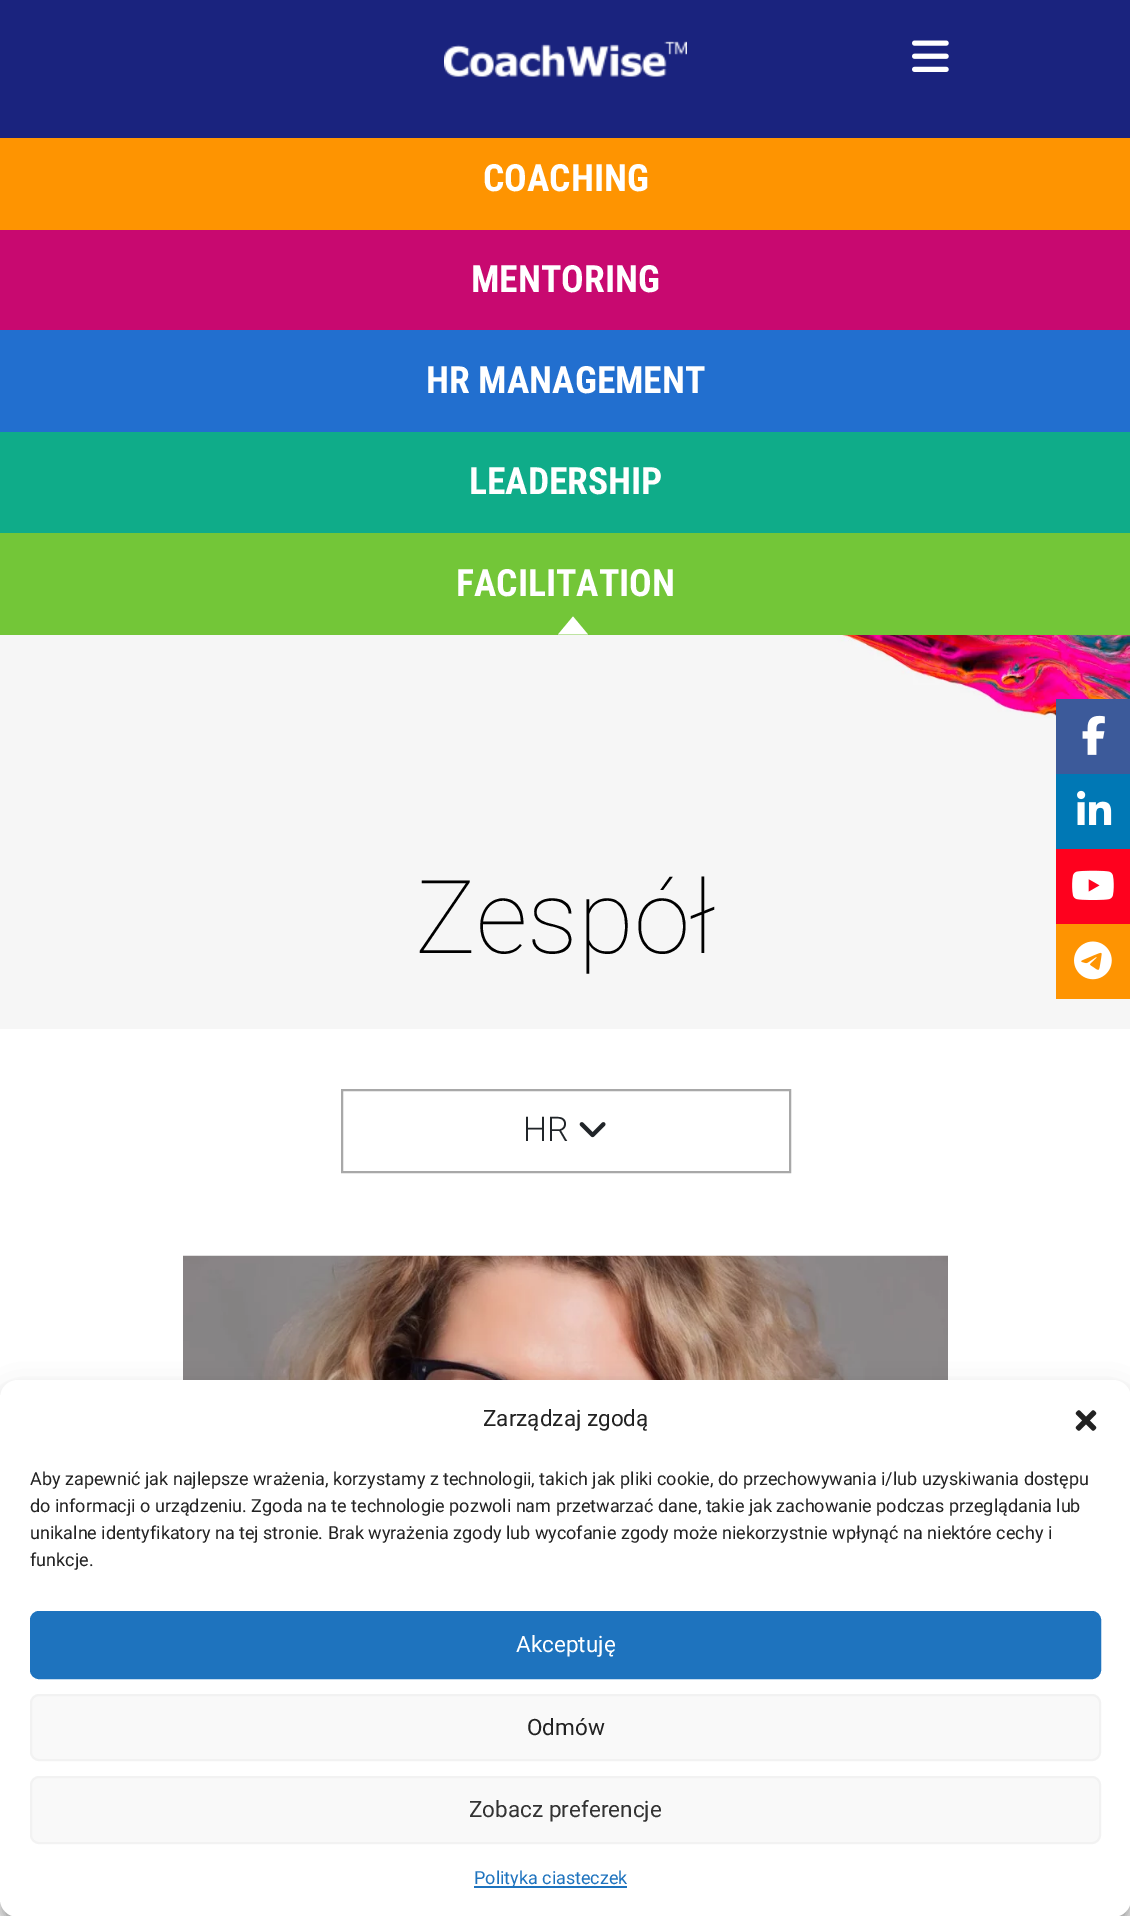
%!PS
<< /PageSize [1130 1916] /PageUsesTransparency true >> setpagedevice
/rgb { 3 { 255 div 3 1 roll } repeat setrgbcolor } def
/font { [ exch dup neg 0 0 3 -1 roll 0 0 ] selectfont } def
/text { moveto show } def
/alpha { dup .setfillconstantalpha .setstrokeconstantalpha } def
/roundrect { 5 dict begin { /r /h /w /y /x } { exch def } forall
  x r add y moveto x w add y 2 copy h add r arct x w add y h add x 1 index r arct
  x y h add x y r arct x y 2 copy exch w add exch r arct closepath end } def
/shadow { 12 dict begin { /a /b /q /h /w /y /x } { exch def } forall gsave /was 0 def
  9 -2 -9 { dup b mul 4 div /e exch def 1 sub .425 mul 2.718 exch exp 1 add a .99 .min exch div /now exch def
    1 1 now sub 1 was sub div sub alpha /was now def
    w h .min e 2 mul add 0 gt { x e sub y e sub w e 2 mul add h e 2 mul add
      q e add b .6 mul add w h .min 2 div e add .min 0 .max roundrect fill } if } for grestore end } def
/picture { 5 dict begin { /h /w /y /x /name } { exch def } forall
  gsave x y translate w h scale
  w h 8 [w 0 0 h 0 0] name (r) file false 3 colorimage grestore end } def
0 .pushpdf14devicefilter
0 1916 translate 1 -1 scale
4 setmiterlimit
255 255 255 rgb
0 0 1130 1916 rectfill
26 35 126 rgb
0 0 1130 138 rectfill
(img_01.rgb) 444 41 243 36 picture
(img_02.rgb) 912 40 37 32 picture
254 148 1 rgb
0 138 1130 92 rectfill
200 9 112 rgb
0 230 1130 100 rectfill
34 111 207 rgb
0 330 1130 102 rectfill
15 172 137 rgb
0 432 1130 101 rectfill
115 198 56 rgb
0 533 1130 102 rectfill
255 255 255 rgb
588 634.5 moveto -30 0 rlineto 15 -18 rlineto closepath fill
(img_03.rgb) 0 635 1130 394 picture
168 168 168 rgb
2 setlinewidth
342 1090 448 82 rectstroke
(img_04.rgb) 579 1122 27 16 picture
(img_05.rgb) 183 1255 765 125 picture
60 90 154 rgb
1056 699 74 75 rectfill
(img_06.rgb) 1082 715 23 40 picture
0 120 181 rgb
1056 774 74 75 rectfill
(img_07.rgb) 1077 790 35 35 picture
254 1 30 rgb
1056 849 74 75 rectfill
(img_08.rgb) 1072 870 42 30 picture
254 148 2 rgb
1056 924 74 75 rectfill
(img_09.rgb) 1074 941 38 39 picture
0 0 0 rgb
0 1389 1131 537 18 4.5 0.23 shadow
0 1395 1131 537 18 15 0.19 shadow
255 255 255 rgb
0 1380 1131 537 18 roundrect fill
(img_10.rgb) 1075 1410 22 21 picture
30 115 190 rgb
31 1612 1069 66 8 roundrect gsave fill grestore
stroke
249 249 249 rgb
31 1695 1069 65 8 roundrect gsave fill grestore
242 242 242 rgb
stroke
249 249 249 rgb
31 1777 1069 66 8 roundrect gsave fill grestore
242 242 242 rgb
stroke
30 115 190 rgb
474 1886 153 2 rectfill
/RobotoCondensed-Bold 37.5 font
255 255 255 rgb
(COACHING) 483 191 text
(MENTORING) 471 292 text
(HR MANAGEMENT) 426 393 text
(LEADERSHIP) 469 494 text
(FACILITATION) 456 596 text
/Roboto-Thin 102 font
0 0 0 rgb
(Zespół) 415 953 text
/Roboto-Light 34 font
33 37 41 rgb
(HR) 523 1141 text
/Roboto-Regular 22.5 font
34 34 34 rgb
(Zarządzaj zgodą) 483 1426 text
/Roboto-Regular 18 font
(Aby zapewnić jak najlepsze wrażenia, korzystamy z technologii, takich jak pliki cookie, do przechowywania i/lub uzyskiwania dostępu) 30 1485 text
(do informacji o urządzeniu. Zgoda na te technologie pozwoli nam przetwarzać dane, takie jak zachowanie podczas przeglądania lub) 30 1512 text
(unikalne identyfikatory na tej stronie. Brak wyrażenia zgody lub wycofanie zgody może niekorzystnie wpłynąć na niektóre cechy i) 30 1539 text
(funkcje.) 30 1566 text
/Roboto-Regular 22.5 font
255 255 255 rgb
(Akceptuję) 516 1652 text
34 34 34 rgb
(Odmów) 527 1735 text
51 51 51 rgb
(Zobacz preferencje) 469 1817 text
/Roboto-Regular 18 font
30 115 190 rgb
(Polityka ciasteczek) 474 1884 text
.poppdf14devicefilter showpage
